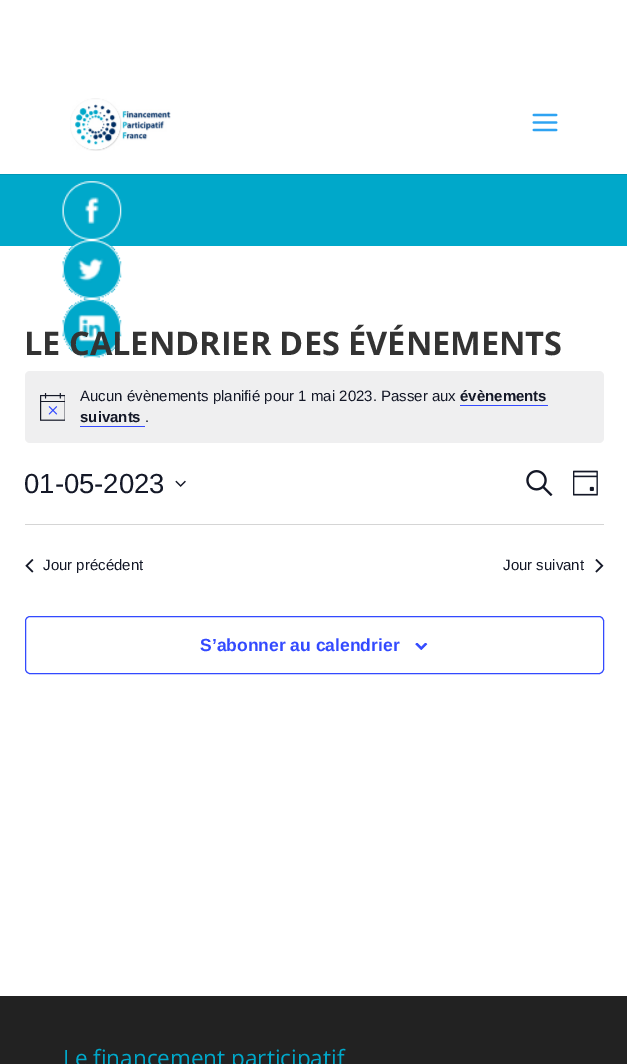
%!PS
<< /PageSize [627 1064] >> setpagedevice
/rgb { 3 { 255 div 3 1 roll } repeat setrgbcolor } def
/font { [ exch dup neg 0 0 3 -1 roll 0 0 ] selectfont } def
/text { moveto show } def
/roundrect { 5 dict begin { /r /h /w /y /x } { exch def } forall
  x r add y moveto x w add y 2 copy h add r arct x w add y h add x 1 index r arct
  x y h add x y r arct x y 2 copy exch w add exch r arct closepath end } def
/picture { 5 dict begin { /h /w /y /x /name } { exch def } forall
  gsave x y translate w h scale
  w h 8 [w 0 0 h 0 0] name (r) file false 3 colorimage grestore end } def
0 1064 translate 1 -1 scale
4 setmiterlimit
255 255 255 rgb
0 0 627 1064 rectfill
0 151 182 rgb
0 174 moveto 0 1 rlineto 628 0 rlineto 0 -100 rlineto 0 99 rlineto closepath fill
(img_01.rgb) 70 98 101 53 picture
(img_02.rgb) 532 113 26 19 picture
0 168 202 rgb
0 175 627 71 rectfill
(img_03.rgb) 62 181 60 59 picture
(img_04.rgb) 62 240 60 59 picture
(img_05.rgb) 62 298 60 60 picture
239 239 240 rgb
25 371 579 72 5 roundrect fill
(img_06.rgb) 40 393 25 28 picture
51 74 255 rgb
460 405 88 1 rectfill
80 426 65 1 rectfill
(img_07.rgb) 175 480 11 7 picture
(img_08.rgb) 526 470 27 26 picture
(img_09.rgb) 573 470 25 26 picture
213 213 213 rgb
25 524 579 1 rectfill
(img_10.rgb) 25 559 9 14 picture
(img_11.rgb) 595 559 9 14 picture
51 74 255 rgb
25.5 616.5 578 57 4.5 roundrect stroke
(img_12.rgb) 415 643 13 7 picture
34 34 34 rgb
0 996 627 68 rectfill
/OpenSans-Bold 32.5 font
51 51 51 rgb
(LE CALENDRIER DES ÉVÉNEMENTS) 24 355 text
/LiberationSans-Regular 15 font
20 24 39 rgb
(Aucun évènements planifié pour 1 mai 2023. Passer aux) 80 401 text
/LiberationSans-Bold 15 font
(évènements) 460 401 text
(suivants) 80 422 text
/LiberationSans-Regular 15 font
(.) 145 422 text
/LiberationSans-Regular 27.5 font
(01-05-2023) 24 493 text
/LiberationSans-Regular 15 font
(Jour précédent) 43 570 text
(Jour suivant) 503 570 text
/LiberationSans-Bold 17.5 font
51 74 255 rgb
(S’abonner au calendrier) 200 651 text
/OpenSans-Regular 22.5 font
0 168 202 rgb
(Le financement participatif) 63 1066 text
showpage
